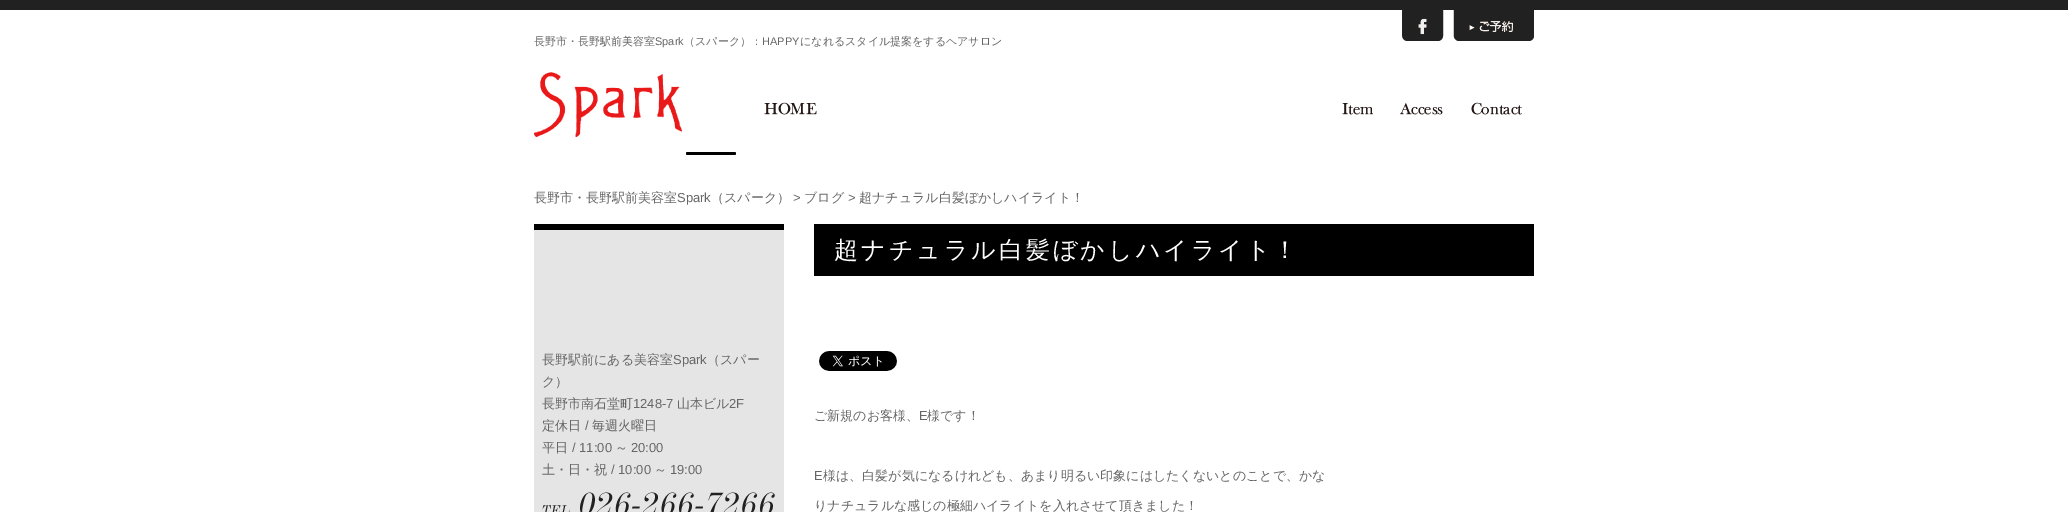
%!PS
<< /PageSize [2068 512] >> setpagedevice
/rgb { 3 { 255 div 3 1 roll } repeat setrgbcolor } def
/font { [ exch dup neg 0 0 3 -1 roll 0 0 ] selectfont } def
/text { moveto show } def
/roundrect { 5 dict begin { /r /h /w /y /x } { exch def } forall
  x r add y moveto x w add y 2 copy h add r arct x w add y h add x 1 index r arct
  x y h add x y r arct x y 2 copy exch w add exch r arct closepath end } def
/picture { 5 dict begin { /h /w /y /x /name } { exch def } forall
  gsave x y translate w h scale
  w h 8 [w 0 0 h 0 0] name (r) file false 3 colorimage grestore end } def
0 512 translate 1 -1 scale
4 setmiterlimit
255 255 255 rgb
0 0 2068 512 rectfill
33 33 33 rgb
0 0 2068 10 rectfill
(img_01.rgb) 1402 10 42 31 picture
(img_02.rgb) 1453 10 81 31 picture
(img_03.rgb) 534 72 149 65 picture
(img_04.rgb) 764 102 53 13 picture
(img_05.rgb) 1342 103 31 12 picture
(img_06.rgb) 1400 103 43 12 picture
(img_07.rgb) 1471 102 51 13 picture
0 0 0 rgb
686 152 50 3 1.5 roundrect fill
229 229 229 rgb
534 230 250 282 rectfill
0 0 0 rgb
534 224 250 6 rectfill
(img_08.rgb) 542 492 233 20 picture
814 224 720 52 rectfill
(img_09.rgb) 819 351 78 20 picture
/WenQuanYiZenHei-Medium 11 font
102 102 102 rgb
(長野市・長野駅前美容室) 534 45 text
/LiberationSans-Regular 11 font
(Spark) 655 45 text
/WenQuanYiZenHei-Medium 11 font
(（スパーク）：) 684 45 text
/LiberationSans-Regular 11 font
(HAPPY) 762 45 text
/WenQuanYiZenHei-Medium 11 font
(になれるスタイル提案をするヘアサロン) 800 45 text
/WenQuanYiZenHei-Medium 13 font
(長野市・長野駅前美容室) 534 202 text
/LiberationSans-Regular 13 font
(Spark) 677 202 text
/WenQuanYiZenHei-Medium 13 font
(（スパーク）) 711 202 text
/LiberationSans-Regular 13 font
(>) 793 202 text
/WenQuanYiZenHei-Medium 13 font
(ブログ) 804 202 text
/LiberationSans-Regular 13 font
(>) 848 202 text
/WenQuanYiZenHei-Medium 13 font
(超ナチュラル白髪ぼかしハイライト！) 859 202 text
(長野駅前にある美容室) 542 364 text
/LiberationSans-Regular 13 font
(Spark) 673 364 text
/WenQuanYiZenHei-Medium 13 font
(（スパー) 707 364 text
(ク）) 542 386 text
(長野市南石堂町) 542 408 text
/LiberationSans-Regular 13 font
(1248-7) 633 408 text
/WenQuanYiZenHei-Medium 13 font
(山本ビル) 677 408 text
/LiberationSans-Regular 13 font
(2F) 729 408 text
/WenQuanYiZenHei-Medium 13 font
(定休日) 542 430 text
/LiberationSans-Regular 13 font
(/) 585 430 text
/WenQuanYiZenHei-Medium 13 font
(毎週火曜日) 592 430 text
(平日) 542 452 text
/LiberationSans-Regular 13 font
(/ 11:00) 572 452 text
/WenQuanYiZenHei-Medium 13 font
(～) 615 452 text
/LiberationSans-Regular 13 font
(20:00) 631 452 text
/WenQuanYiZenHei-Medium 13 font
(土・日・祝) 542 474 text
/LiberationSans-Regular 13 font
(/ 10:00) 611 474 text
/WenQuanYiZenHei-Medium 13 font
(～) 654 474 text
/LiberationSans-Regular 13 font
(19:00) 670 474 text
/WenQuanYiZenHei-Medium 24 font
255 255 255 rgb
834 258 moveto 3 0 (超ナチュラル白髪ぼかしハイライト！) ashow
/WenQuanYiZenHei-Medium 13 font
102 102 102 rgb
(ご新規のお客様、) 814 420 text
/LiberationSans-Regular 13 font
(E) 919 420 text
/WenQuanYiZenHei-Medium 13 font
(様です！) 927 420 text
/LiberationSans-Regular 13 font
(E) 814 480 text
/WenQuanYiZenHei-Medium 13 font
(様は、白髪が気になるけれども、あまり明るい印象にはしたくないとのことで、かな) 823 480 text
(りナチュラルな感じの極細ハイライトを入れさせて頂きました！) 814 510 text
showpage
